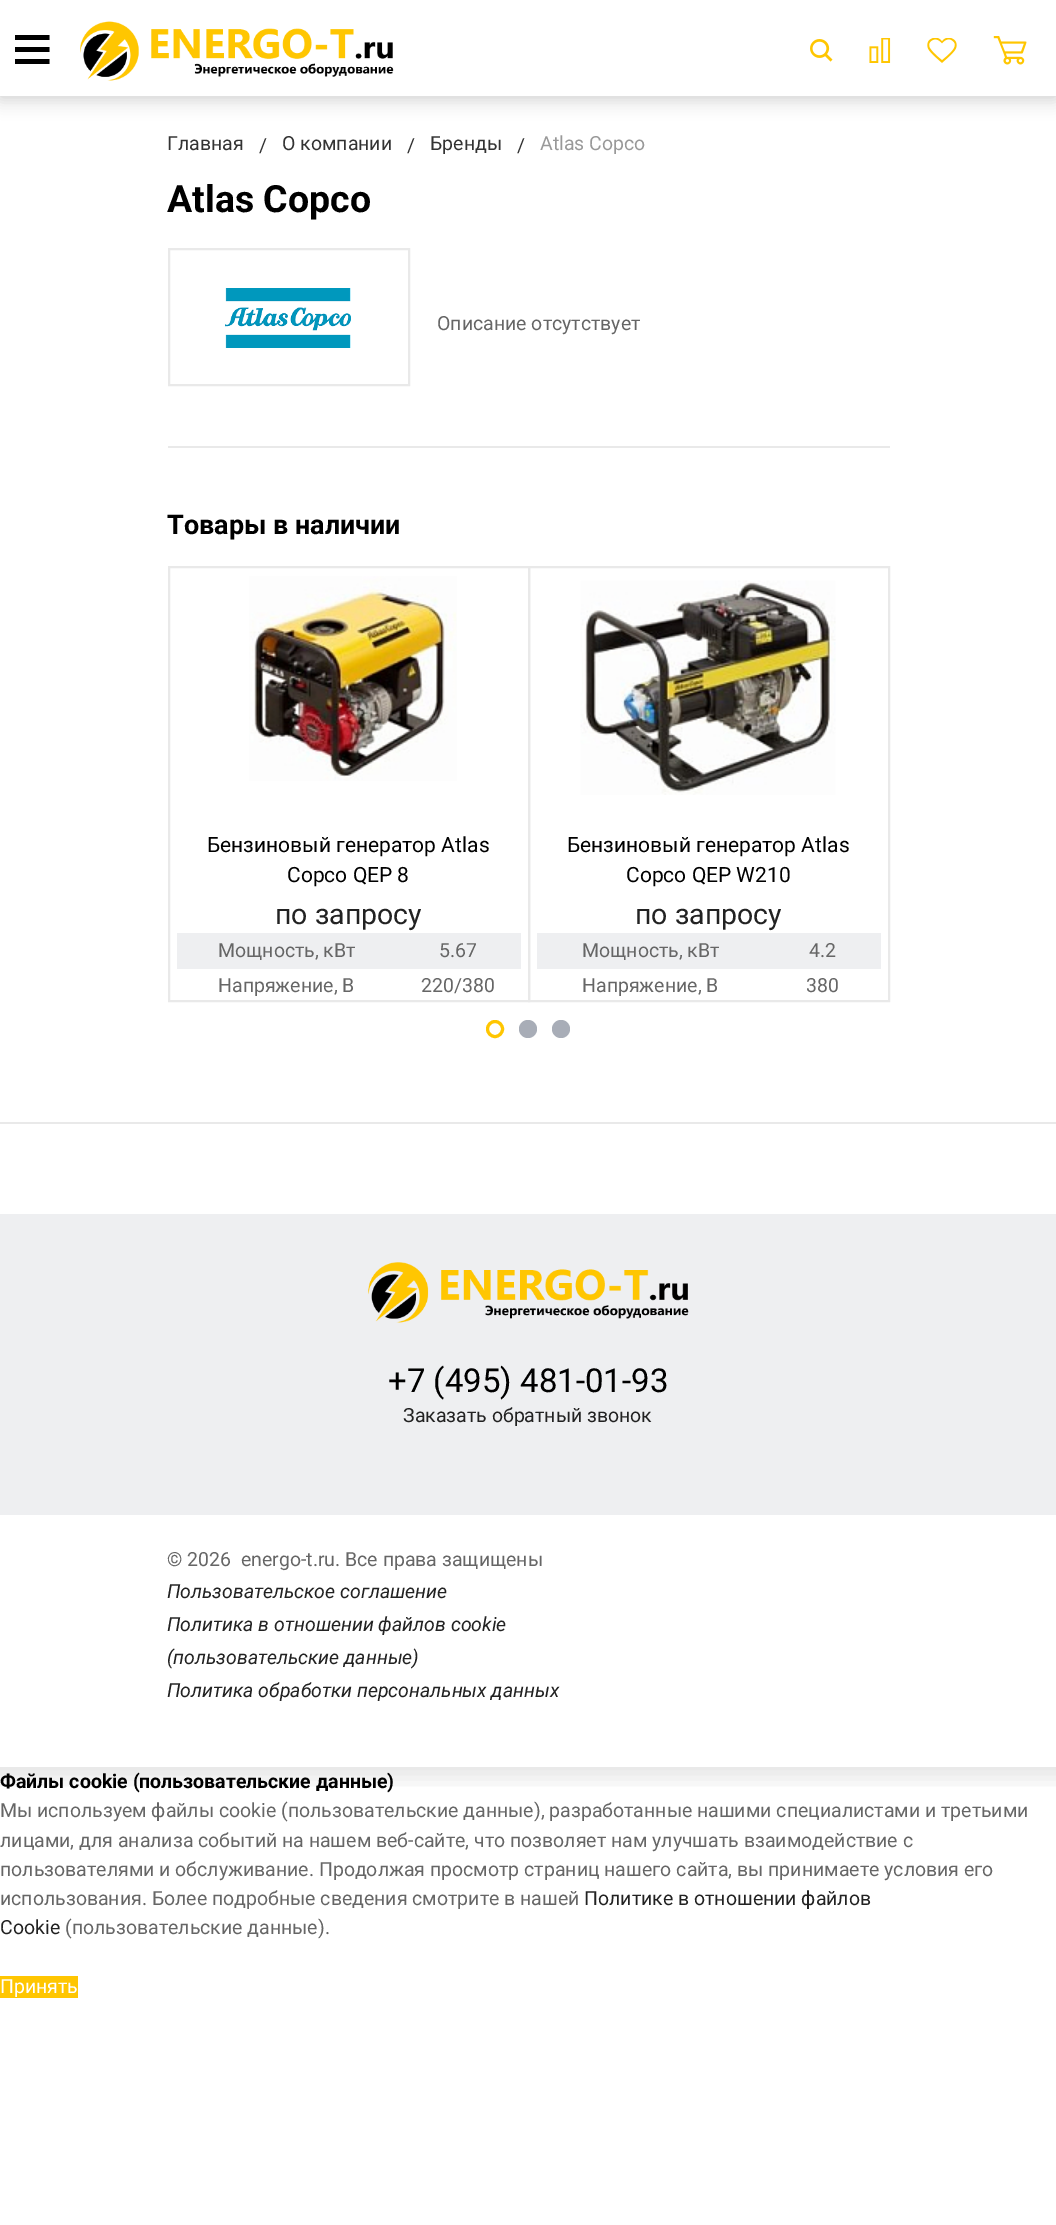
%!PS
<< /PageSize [1056 2225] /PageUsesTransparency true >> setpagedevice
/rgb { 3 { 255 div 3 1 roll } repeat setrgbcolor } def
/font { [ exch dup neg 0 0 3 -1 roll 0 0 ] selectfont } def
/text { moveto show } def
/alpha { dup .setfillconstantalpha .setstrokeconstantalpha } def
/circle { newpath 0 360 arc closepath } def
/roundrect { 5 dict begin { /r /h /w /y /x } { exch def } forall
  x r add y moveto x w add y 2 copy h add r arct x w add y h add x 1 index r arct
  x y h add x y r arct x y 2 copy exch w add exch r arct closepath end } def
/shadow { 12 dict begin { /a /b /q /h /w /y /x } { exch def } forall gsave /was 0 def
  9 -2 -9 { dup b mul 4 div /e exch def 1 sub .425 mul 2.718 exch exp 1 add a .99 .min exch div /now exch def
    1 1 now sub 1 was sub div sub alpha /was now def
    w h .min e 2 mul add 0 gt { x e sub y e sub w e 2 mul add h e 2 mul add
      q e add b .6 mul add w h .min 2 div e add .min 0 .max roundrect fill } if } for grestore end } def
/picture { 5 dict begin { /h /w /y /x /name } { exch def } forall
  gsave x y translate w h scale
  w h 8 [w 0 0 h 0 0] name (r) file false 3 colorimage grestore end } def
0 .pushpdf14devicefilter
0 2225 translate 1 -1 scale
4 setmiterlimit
255 255 255 rgb
0 0 1056 2225 rectfill
gsave
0 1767 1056 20 rectclip
0 0 0 rgb
-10 -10 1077 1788 0 10.5 0.1 shadow
grestore
5 5 5 rgb
0 0 1056 93 0 11 0.15 shadow
0 0 1056 96 0 11 0.15 shadow
255 255 255 rgb
0 0 1056 96 rectfill
0 0 0 rgb
15 64 moveto 0 -5 rlineto 34.5 0 rlineto 0 5 rlineto closepath 15 47 moveto 34.5 0 rlineto 0 5 rlineto -34.5 0 rlineto closepath 15 35 moveto 34.5 0 rlineto 0 5 rlineto -34.5 0 rlineto closepath eofill
(img_01.rgb) 80 21 314 60 picture
(img_02.rgb) 810 39 23 23 picture
(img_03.rgb) 869 38 22 25 picture
(img_04.rgb) 927 38 30 25 picture
(img_05.rgb) 993 36 34 29 picture
233 233 233 rgb
168 446 722 2 rectfill
2 setlinewidth
169 249 240 136 rectstroke
(img_06.rgb) 225 288 126 60 picture
169 567 360 434 rectstroke
(img_07.rgb) 249 576 208 205 picture
238 239 241 rgb
177 933 344 36 rectfill
233 233 233 rgb
529 567 360 434 rectstroke
(img_08.rgb) 580 580 256 215 picture
238 239 241 rgb
537 933 344 36 rectfill
255 198 1 rgb
3 setlinewidth
495 1029 7.5 circle stroke
168 173 183 rgb
528 1029 9 circle fill
561 1029 9 circle fill
233 233 233 rgb
0 1122 1056 2 rectfill
238 239 241 rgb
0 1214 1056 301 rectfill
(img_09.rgb) 368 1262 321 61 picture
255 198 1 rgb
0 1976 78 22 rectfill
/Roboto-Regular 19.5 font
51 51 51 rgb
(Главная) 167 150 text
(/) 259 152 text
(О компании) 282 150 text
(/) 407 152 text
(Бренды) 430 150 text
(/) 517 152 text
153 153 153 rgb
(Atlas Copco) 540 150 text
/Roboto-Bold 37.5 font
0 0 0 rgb
(Atlas Copco) 167 212 text
/Roboto-Regular 19.5 font
102 102 102 rgb
(Описание отсутствует) 437 330 text
/Roboto-Bold 27 font
0 0 0 rgb
(Товары в наличии) 167 534 text
/Roboto-Regular 21 font
(Бензиновый генератор Atlas) 207 852 text
(Copco QEP 8) 287 882 text
/Roboto-Regular 28.5 font
34 34 34 rgb
(по запросу) 275 924 text
/Roboto-Regular 19.5 font
102 102 102 rgb
(Мощность, кВт) 218 957 text
(5.67) 439 957 text
(Напряжение, В) 218 992 text
(220/380) 421 992 text
/Roboto-Regular 21 font
0 0 0 rgb
(Бензиновый генератор Atlas) 567 852 text
(Copco QEP W210) 626 882 text
/Roboto-Regular 28.5 font
34 34 34 rgb
(по запросу) 635 924 text
/Roboto-Regular 19.5 font
102 102 102 rgb
(Мощность, кВт) 582 957 text
(4.2) 809 957 text
(Напряжение, В) 582 992 text
(380) 806 992 text
/Roboto-Regular 33 font
0 0 0 rgb
(+7 \(495\) 481-01-93) 388 1392 text
/Roboto-Regular 19.5 font
34 34 34 rgb
(Заказать обратный звонок) 403 1422 text
102 102 102 rgb
(© 2026  energo-t.ru. Все права защищены) 167 1566 text
/Roboto-Italic 19.5 font
34 34 34 rgb
(Пользовательское соглашение) 167 1598 text
(Политика в отношении файлов cookie) 167 1631 text
(\(пользовательские данные\)) 167 1664 text
(Политика обработки персональных данных) 167 1697 text
/Roboto-Bold 19.5 font
0 0 0 rgb
(Файлы cookie \(пользовательские данные\)) 0 1788 text
/Roboto-Regular 19.5 font
102 102 102 rgb
(Мы используем файлы cookie \(пользовательские данные\), разработанные нашими специалистами и третьими) 0 1817 text
(лицами, для анализа событий на нашем веб-сайте, что позволяет нам улучшать взаимодействие с) 0 1847 text
(пользователями и обслуживание. Продолжая просмотр страниц нашего сайта, вы принимаете условия его) 0 1876 text
(использования. Более подробные сведения смотрите в нашей) 0 1905 text
34 34 34 rgb
(Политике в отношении файлов) 584 1905 text
(Cookie) 0 1934 text
102 102 102 rgb
(\(пользовательские данные\).) 65 1934 text
255 255 255 rgb
(Принять) 0 1993 text
.poppdf14devicefilter showpage
